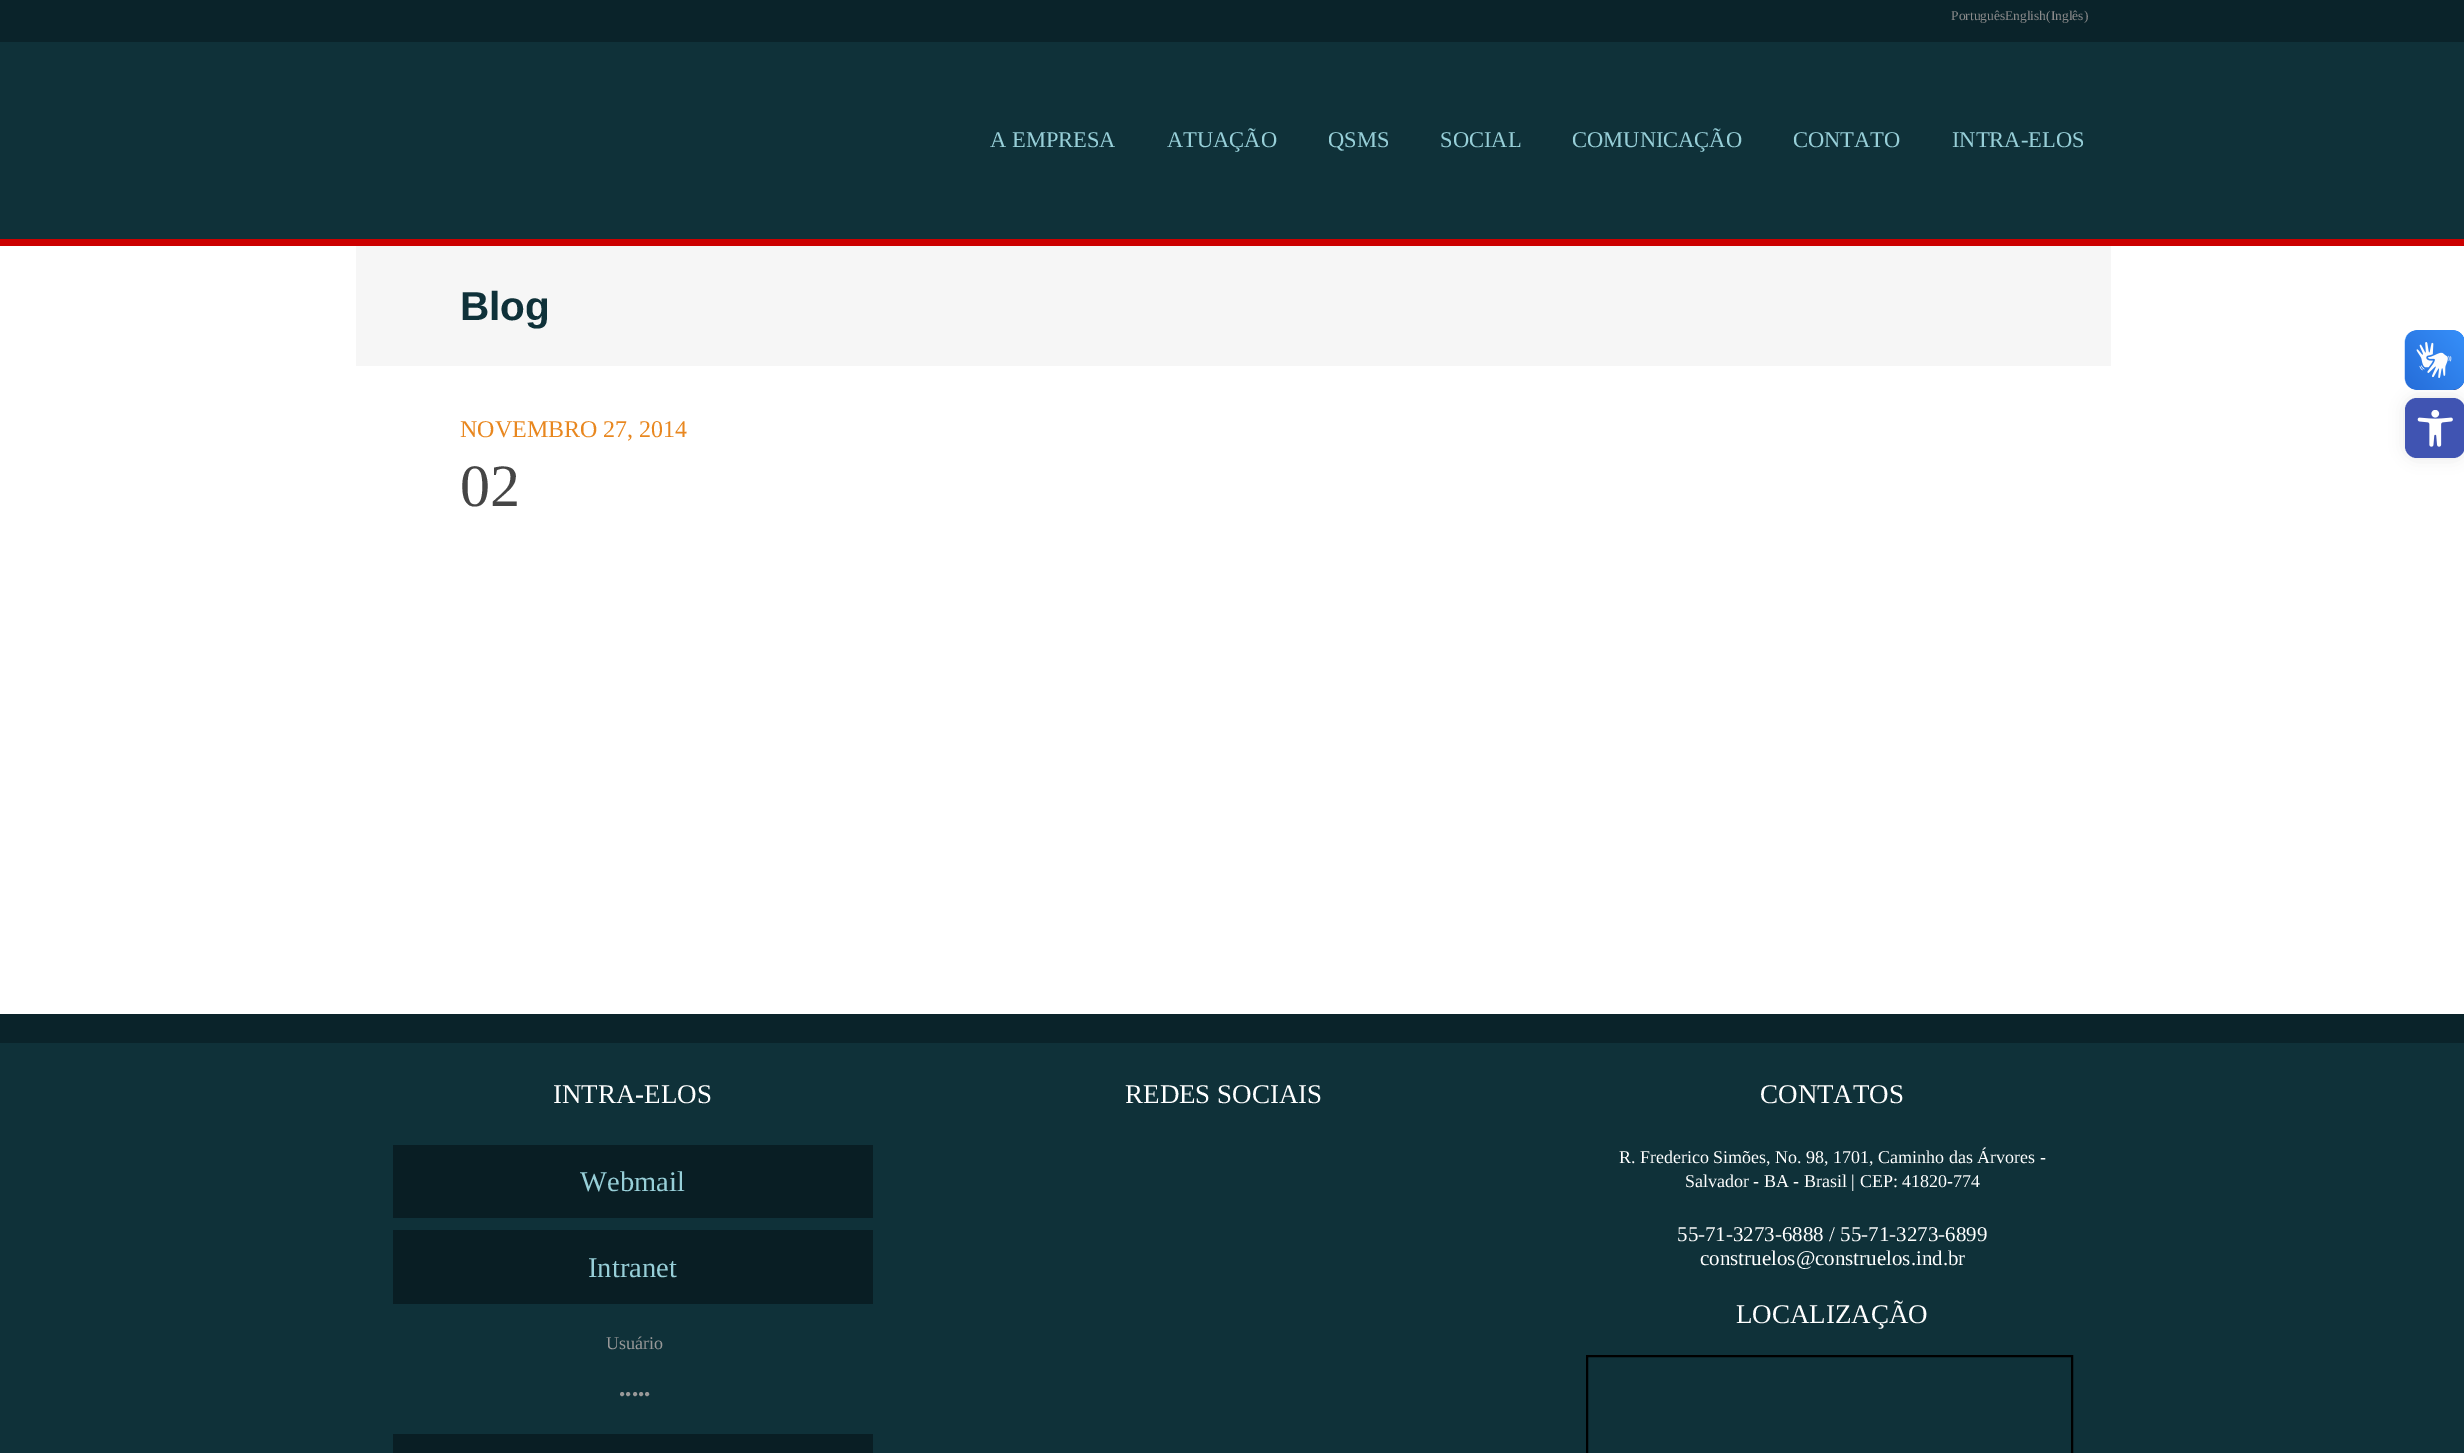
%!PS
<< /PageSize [2464 1453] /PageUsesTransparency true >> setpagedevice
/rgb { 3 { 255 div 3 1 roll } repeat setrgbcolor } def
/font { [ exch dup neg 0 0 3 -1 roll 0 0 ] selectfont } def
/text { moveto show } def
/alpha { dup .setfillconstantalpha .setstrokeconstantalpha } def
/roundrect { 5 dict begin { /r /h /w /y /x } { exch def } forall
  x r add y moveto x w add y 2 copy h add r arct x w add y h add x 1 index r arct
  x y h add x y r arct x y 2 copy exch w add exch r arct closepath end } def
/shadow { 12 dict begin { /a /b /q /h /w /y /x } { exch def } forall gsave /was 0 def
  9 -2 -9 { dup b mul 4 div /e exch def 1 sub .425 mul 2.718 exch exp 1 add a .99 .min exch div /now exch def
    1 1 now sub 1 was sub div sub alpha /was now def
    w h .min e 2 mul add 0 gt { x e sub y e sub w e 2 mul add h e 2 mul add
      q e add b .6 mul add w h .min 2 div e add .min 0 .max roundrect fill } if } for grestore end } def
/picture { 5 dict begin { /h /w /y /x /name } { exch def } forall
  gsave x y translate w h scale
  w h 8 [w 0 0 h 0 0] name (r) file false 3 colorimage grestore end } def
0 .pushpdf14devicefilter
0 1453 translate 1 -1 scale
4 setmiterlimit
255 255 255 rgb
0 0 2464 1453 rectfill
15 49 57 rgb
0 42 2464 197 rectfill
204 0 0 rgb
0 239 2464 7 rectfill
10 35 42 rgb
0 0 2464 42 rectfill
246 246 246 rgb
356 246 1755 120 rectfill
0 0 0 rgb
2405 398 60 60 12 7.5 0.1 shadow
(img_01.rgb) 2404 330 60 60 picture
(img_02.rgb) 2405 330 59 60 picture
64 84 178 rgb
2405 398 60 60 12 roundrect fill
(img_03.rgb) 2417 410 36 37 picture
15 49 57 rgb
0 1043 2464 410 rectfill
10 35 42 rgb
0 1014 2464 29 rectfill
9 30 36 rgb
393 1145 480 73 rectfill
393 1230 480 74 rectfill
393 1434 480 19 rectfill
0 0 0 rgb
2 setlinewidth
1587 1356 485 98 rectstroke
/LiberationSerif-Regular 13.5 font
139 139 139 rgb
(PortuguêsEnglish\(Inglês\)) 1951 20 text
/LiberationSerif-Regular 22.5 font
151 207 216 rgb
(A EMPRESA) 990 147 text
(ATUAÇÃO) 1167 147 text
(QSMS) 1328 147 text
(SOCIAL) 1440 147 text
(COMUNICAÇÃO) 1572 147 text
(CONTATO) 1793 147 text
(INTRA-ELOS) 1952 147 text
/LiberationSans-Bold 40.5 font
15 49 57 rgb
(Blog) 460 320 text
/LiberationSerif-Regular 24 font
232 135 31 rgb
(NOVEMBRO 27, 2014) 460 437 text
/LiberationSerif-Regular 60 font
69 69 69 rgb
(02) 460 506 text
/LiberationSerif-Regular 27 font
255 255 255 rgb
(INTRA-ELOS) 553 1103 text
/LiberationSerif-Regular 28.5 font
151 207 216 rgb
(Webmail) 580 1191 text
(Intranet) 588 1277 text
/LiberationSerif-Regular 18 font
153 153 153 rgb
(Usuário) 606 1349 text
(•••••) 619 1400 text
/LiberationSerif-Regular 27 font
255 255 255 rgb
(REDES SOCIAIS) 1125 1103 text
(CONTATOS) 1760 1103 text
/LiberationSerif-Regular 18 font
(R. Frederico Simões, No. 98, 1701, Caminho das Árvores -) 1619 1163 text
(Salvador - BA - Brasil | CEP: 41820-774) 1685 1187 text
/LiberationSerif-Regular 21 font
(55-71-3273-6888 / 55-71-3273-6899) 1677 1241 text
(construelos@construelos.ind.br) 1700 1265 text
/LiberationSerif-Regular 27 font
(LOCALIZAÇÃO) 1736 1323 text
.poppdf14devicefilter showpage
